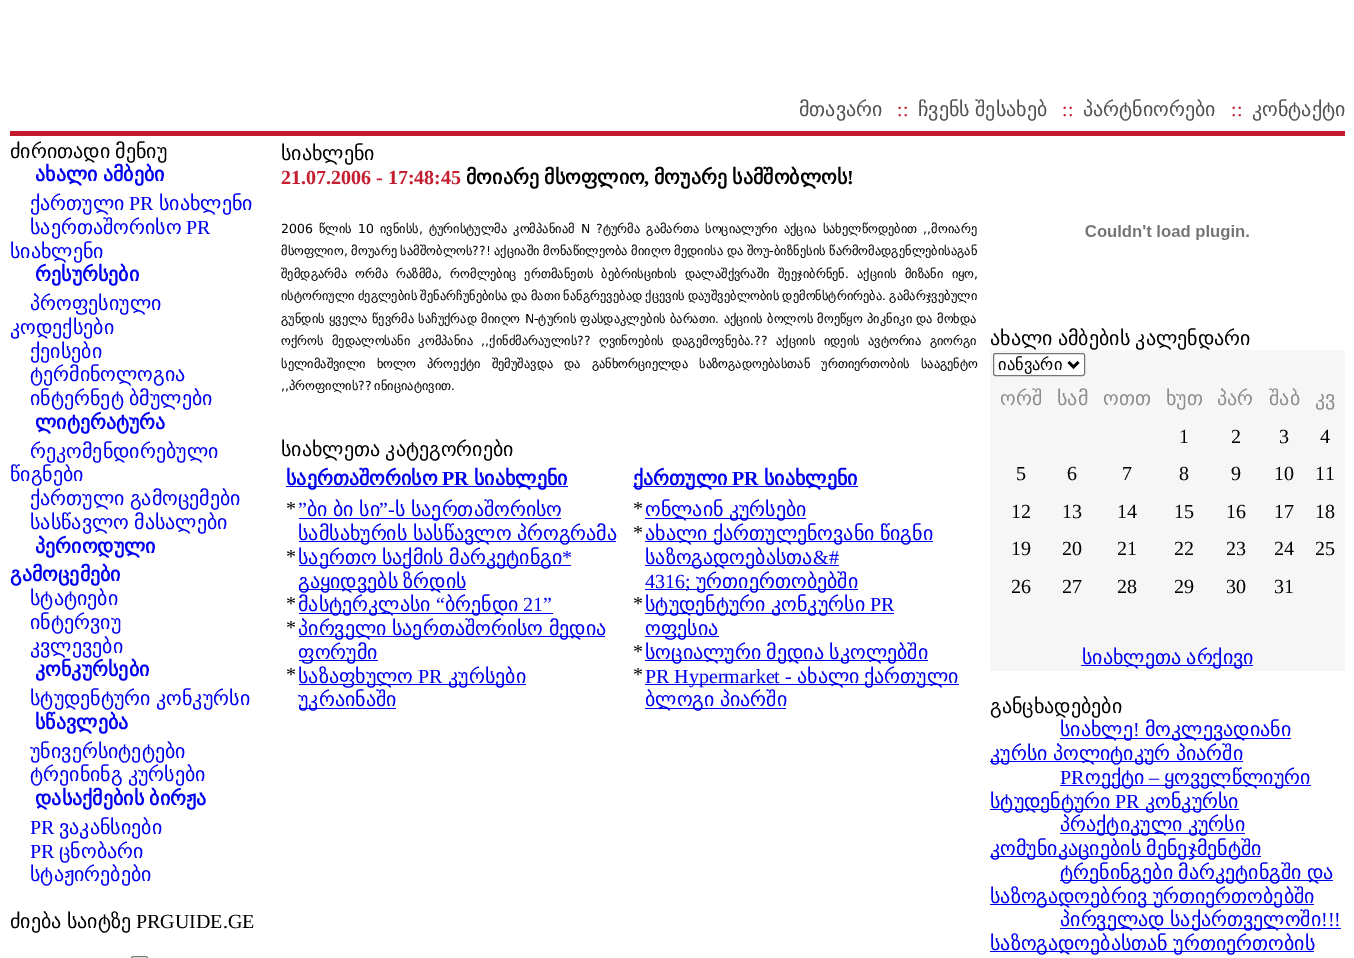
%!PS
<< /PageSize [1354 958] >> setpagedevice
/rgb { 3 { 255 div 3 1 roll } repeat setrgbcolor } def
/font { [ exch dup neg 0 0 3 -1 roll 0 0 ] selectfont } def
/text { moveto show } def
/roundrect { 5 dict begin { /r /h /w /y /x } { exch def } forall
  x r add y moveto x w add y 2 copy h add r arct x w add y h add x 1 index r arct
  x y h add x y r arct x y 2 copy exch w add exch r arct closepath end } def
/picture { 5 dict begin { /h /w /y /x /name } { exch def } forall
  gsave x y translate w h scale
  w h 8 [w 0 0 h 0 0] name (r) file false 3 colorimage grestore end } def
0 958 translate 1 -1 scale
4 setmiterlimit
255 255 255 rgb
0 0 1354 958 rectfill
195 27 45 rgb
10 131 1335 5 rectfill
118 118 118 rgb
131.5 956.5 16 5 2 roundrect stroke
0 0 238 rgb
286 486 282 1 rectfill
299 518 262 1 rectfill
299 541 317 1 rectfill
299 565 272 1 rectfill
299 589 167 1 rectfill
299 613 254 1 rectfill
299 636 306 1 rectfill
299 660 79 1 rectfill
299 684 227 1 rectfill
299 708 97 1 rectfill
633 486 225 1 rectfill
645 518 161 1 rectfill
645 541 288 1 rectfill
645 565 194 1 rectfill
645 589 213 1 rectfill
645 613 249 1 rectfill
645 636 74 1 rectfill
645 660 283 1 rectfill
645 684 314 1 rectfill
645 708 141 1 rectfill
(img_01.rgb) 1085 225 164 15 picture
246 246 246 rgb
990 350 355 321 rectfill
255 255 255 rgb
993.5 353.5 91 22 2 roundrect gsave fill grestore
118 118 118 rgb
stroke
0 0 0 rgb
2.5 setlinewidth
1068.5 362 moveto 5 5 rlineto 5 -5 rlineto stroke
0 0 238 rgb
1081 665 172 1 rectfill
1060 738 231 1 rectfill
990 761 253 1 rectfill
1060 785 251 1 rectfill
990 809 249 1 rectfill
1060 833 185 1 rectfill
990 856 271 1 rectfill
1060 880 273 1 rectfill
990 904 324 1 rectfill
1060 928 281 1 rectfill
990 951 324 1 rectfill
/DejaVuSans-Regular 20 font
81 81 81 rgb
(მთავარი) 799 116 text
/LiberationSerif-Regular 20 font
197 30 48 rgb
(::) 897 116 text
/DejaVuSans-Regular 20 font
81 81 81 rgb
918 116 moveto -1 0 32 (ჩვენს შესახებ) widthshow
/LiberationSerif-Regular 20 font
197 30 48 rgb
(::) 1062 116 text
/DejaVuSans-Regular 20 font
81 81 81 rgb
(პარტნიორები) 1083 116 text
/LiberationSerif-Regular 20 font
197 30 48 rgb
(::) 1231 116 text
/DejaVuSans-Regular 20 font
81 81 81 rgb
(კონტაქტი) 1252 116 text
0 0 0 rgb
10 158 moveto -1 0 32 (ძირითადი მენიუ) widthshow
/DejaVuSans-Bold 20 font
0 0 238 rgb
35 181 moveto -1 0 32 (ახალი ამბები) widthshow
/DejaVuSans-Regular 20 font
(ქართული) 30 210 text
/LiberationSerif-Regular 20 font
(PR) 129 210 text
/DejaVuSans-Regular 20 font
(სიახლენი) 159 210 text
(საერთაშორისო) 30 234 text
/LiberationSerif-Regular 20 font
(PR) 186 234 text
/DejaVuSans-Regular 20 font
(სიახლენი) 10 258 text
/DejaVuSans-Bold 20 font
(რესურსები) 35 281 text
/DejaVuSans-Regular 20 font
(პროფესიული) 30 310 text
(კოდექსები) 10 334 text
(ქეისები) 30 358 text
(ტერმინოლოგია) 30 381 text
30 405 moveto -1 0 32 (ინტერნეტ ბმულები) widthshow
/DejaVuSans-Bold 20 font
(ლიტერატურა) 35 429 text
/DejaVuSans-Regular 20 font
(რეკომენდირებული) 30 458 text
(წიგნები) 10 481 text
30 505 moveto -1 0 32 (ქართული გამოცემები) widthshow
30 529 moveto -1 0 32 (სასწავლო მასალები) widthshow
/DejaVuSans-Bold 20 font
(პერიოდული) 35 553 text
(გამოცემები) 10 581 text
/DejaVuSans-Regular 20 font
(სტატიები) 30 605 text
(ინტერვიუ) 30 629 text
(კვლევები) 30 653 text
/DejaVuSans-Bold 20 font
(კონკურსები) 35 676 text
/DejaVuSans-Regular 20 font
30 705 moveto -1 0 32 (სტუდენტური კონკურსი) widthshow
/DejaVuSans-Bold 20 font
(სწავლება) 35 729 text
/DejaVuSans-Regular 20 font
(უნივერსიტეტები) 30 758 text
30 781 moveto -1 0 32 (ტრეინინგ კურსები) widthshow
/DejaVuSans-Bold 20 font
35 805 moveto -1 0 32 (დასაქმების ბირჟა) widthshow
/LiberationSerif-Regular 20 font
(PR) 30 834 text
/DejaVuSans-Regular 20 font
(ვაკანსიები) 59 834 text
/LiberationSerif-Regular 20 font
(PR) 30 858 text
/DejaVuSans-Regular 20 font
(ცნობარი) 59 858 text
(სტაჟირებები) 30 881 text
0 0 0 rgb
10 928 moveto -1 0 32 (ძიება საიტზე) widthshow
/LiberationSerif-Regular 20 font
(PRGUIDE.GE) 136 928 text
/DejaVuSans-Regular 20 font
(სიახლენი) 281 160 text
/LiberationSerif-Bold 20 font
197 30 48 rgb
(21.07.2006 - 17:48:45) 281 184 text
/DejaVuSans-Bold 20 font
0 0 0 rgb
466 184 moveto -1 0 32 (მოიარე მსოფლიო) widthshow
/LiberationSerif-Bold 20 font
(,) 644 184 text
/DejaVuSans-Bold 20 font
654 184 moveto -1 0 32 (მოუარე სამშობლოს) widthshow
/LiberationSerif-Bold 20 font
(!) 847 184 text
/DejaVuSans-Regular 12.5 font
281 233 moveto 2.1 0 32 (2006 წლის 10 ივნისს, ტურისტულმა კომპანიამ N ?ტურმა გამართა სოციალური აქცია სახელწოდებით ,,მოიარე) widthshow
281 255 moveto -0.4 0 32 (მსოფლიო, მოუარე სამშობლოს??! აქციაში მონაწილეობა მიიღო მედიისა და შოუ-ბიზნესის წარმომადგენლებისაგან) widthshow
281 278 moveto 4.25 0 32 (შემდგარმა ორმა რაზმმა, რომლებიც ერთმანეთს ბებრისციხის დალაშქვრაში შეეჯიბრნენ. აქციის მიზანი იყო,) widthshow
281 300 moveto -0.75 0 32 (ისტორიული ძეგლების შენარჩუნებისა და მათი ნანგრევებად ქცევის დაუშვებლობის დემონსტრირება. გამარჯვებული) widthshow
281 323 moveto 0.25 0 32 (გუნდის ყველა წევრმა საჩუქრად მიიღო N-ტურის ფასდაკლების ბარათი. აქციის ბოლოს მოეწყო პიკნიკი და მოხდა) widthshow
281 345 moveto 4.25 0 32 (ოქროს მედალოსანი კომპანია ,,ქინძმარაულის?? ღვინოების დაგემოვნება.?? აქციის იდეის ავტორია გიორგი) widthshow
281 368 moveto 7 0 32 (სელიმაშვილი ხოლო პროექტი შემუშავდა და განხორციელდა საზოგადოებასთან ურთიერთობის სააგენტო) widthshow
281 390 moveto -1 0 32 (,,პროფილის?? ინიციატივით.) widthshow
/DejaVuSans-Regular 20 font
281 456 moveto -1 0 32 (სიახლეთა კატეგორიები) widthshow
/DejaVuSans-Bold 20 font
0 0 238 rgb
(საერთაშორისო) 286 485 text
/LiberationSerif-Bold 20 font
(PR) 442 485 text
/DejaVuSans-Bold 20 font
(სიახლენი) 474 485 text
/LiberationSerif-Regular 20 font
0 0 0 rgb
(*) 286 515 text
0 0 238 rgb
(”) 298 516 text
/DejaVuSans-Regular 20 font
307 516 moveto -1 0 32 (ბი ბი სი) widthshow
/LiberationSerif-Regular 20 font
(”-) 379 516 text
/DejaVuSans-Regular 20 font
395 516 moveto -1 0 32 (ს საერთაშორისო) widthshow
298 540 moveto -1 0 32 (სამსახურის სასწავლო პროგრამა) widthshow
/LiberationSerif-Regular 20 font
0 0 0 rgb
(*) 286 563 text
/DejaVuSans-Regular 20 font
0 0 238 rgb
298 564 moveto -1 0 32 (საერთო საქმის მარკეტინგი) widthshow
/LiberationSerif-Regular 20 font
(*) 562 564 text
/DejaVuSans-Regular 20 font
298 588 moveto -1 0 32 (გაყიდვებს ზრდის) widthshow
/LiberationSerif-Regular 20 font
0 0 0 rgb
(*) 286 610 text
/DejaVuSans-Regular 20 font
0 0 238 rgb
(მასტერკლასი) 298 611 text
/LiberationSerif-Regular 20 font
(“) 436 611 text
/DejaVuSans-Regular 20 font
(ბრენდი) 445 611 text
/LiberationSerif-Regular 20 font
(21”) 523 611 text
0 0 0 rgb
(*) 286 634 text
/DejaVuSans-Regular 20 font
0 0 238 rgb
298 635 moveto -1 0 32 (პირველი საერთაშორისო მედია) widthshow
(ფორუმი) 298 659 text
/LiberationSerif-Regular 20 font
0 0 0 rgb
(*) 286 681 text
/DejaVuSans-Regular 20 font
0 0 238 rgb
(საზაფხულო) 298 683 text
/LiberationSerif-Regular 20 font
(PR) 418 683 text
/DejaVuSans-Regular 20 font
(კურსები) 448 683 text
(უკრაინაში) 298 706 text
/DejaVuSans-Bold 20 font
(ქართული) 633 485 text
/LiberationSerif-Bold 20 font
(PR) 732 485 text
/DejaVuSans-Bold 20 font
(სიახლენი) 764 485 text
/LiberationSerif-Regular 20 font
0 0 0 rgb
(*) 633 515 text
/DejaVuSans-Regular 20 font
0 0 238 rgb
645 516 moveto -1 0 32 (ონლაინ კურსები) widthshow
/LiberationSerif-Regular 20 font
0 0 0 rgb
(*) 633 539 text
/DejaVuSans-Regular 20 font
0 0 238 rgb
645 540 moveto -1 0 32 (ახალი ქართულენოვანი წიგნი) widthshow
(საზოგადოებასთა) 645 564 text
/LiberationSerif-Regular 20 font
(&#) 813 564 text
(4316;) 645 588 text
/DejaVuSans-Regular 20 font
(ურთიერთობებში) 696 588 text
/LiberationSerif-Regular 20 font
0 0 0 rgb
(*) 633 610 text
/DejaVuSans-Regular 20 font
0 0 238 rgb
645 611 moveto -1 0 32 (სტუდენტური კონკურსი) widthshow
/LiberationSerif-Regular 20 font
(PR) 870 611 text
/DejaVuSans-Regular 20 font
(ოფესია) 645 635 text
/LiberationSerif-Regular 20 font
0 0 0 rgb
(*) 633 658 text
/DejaVuSans-Regular 20 font
0 0 238 rgb
645 659 moveto -1 0 32 (სოციალური მედია სკოლებში) widthshow
/LiberationSerif-Regular 20 font
0 0 0 rgb
(*) 633 681 text
0 0 238 rgb
(PR Hypermarket -) 645 683 text
/DejaVuSans-Regular 20 font
(ახალი) 797 683 text
(ქართული) 864 683 text
645 706 moveto -1 0 32 (ბლოგი პიარში) widthshow
0 0 0 rgb
990 345 moveto -1 0 32 (ახალი ამბების კალენდარი) widthshow
/DejaVuSans-Regular 16.5 font
(იანვარი) 998 370 text
/DejaVuSans-Regular 20 font
141 141 141 rgb
(ორშ) 1000 405 text
(სამ) 1057 405 text
(ოთთ) 1103 405 text
(ხუთ) 1166 405 text
(პარ) 1217 405 text
(შაბ) 1269 405 text
(კვ) 1315 405 text
/LiberationSerif-Regular 20 font
0 0 0 rgb
(1) 1179 443 text
(2) 1231 443 text
(3) 1279 443 text
(4) 1320 443 text
(5) 1016 480 text
(6) 1067 480 text
(7) 1122 480 text
(8) 1179 480 text
(9) 1231 480 text
(10) 1274 480 text
(11) 1315 480 text
(12) 1011 518 text
(13) 1062 518 text
(14) 1117 518 text
(15) 1174 518 text
(16) 1226 518 text
(17) 1274 518 text
(18) 1315 518 text
(19) 1011 555 text
(20) 1062 555 text
(21) 1117 555 text
(22) 1174 555 text
(23) 1226 555 text
(24) 1274 555 text
(25) 1315 555 text
(26) 1011 593 text
(27) 1062 593 text
(28) 1117 593 text
(29) 1174 593 text
(30) 1226 593 text
(31) 1274 593 text
/DejaVuSans-Regular 20 font
0 0 238 rgb
1082 664 moveto -1 0 32 (სიახლეთა არქივი) widthshow
0 0 0 rgb
(განცხადებები) 990 713 text
0 0 238 rgb
(სიახლე) 1060 736 text
/LiberationSerif-Regular 20 font
(!) 1133 736 text
/DejaVuSans-Regular 20 font
(მოკლევადიანი) 1145 736 text
990 760 moveto -1 0 32 (კურსი პოლიტიკურ პიარში) widthshow
/LiberationSerif-Regular 20 font
(PR) 1060 784 text
/DejaVuSans-Regular 20 font
(ოექტი) 1085 784 text
/LiberationSerif-Regular 20 font
(–) 1149 784 text
/DejaVuSans-Regular 20 font
(ყოველწლიური) 1164 784 text
(სტუდენტური) 990 808 text
/LiberationSerif-Regular 20 font
(PR) 1115 808 text
/DejaVuSans-Regular 20 font
(კონკურსი) 1145 808 text
1060 831 moveto -1 0 32 (პრაქტიკული კურსი) widthshow
990 855 moveto -1 0 32 (კომუნიკაციების მენეჯმენტში) widthshow
1060 879 moveto -1 0 32 (ტრენინგები მარკეტინგში და) widthshow
990 903 moveto -1 0 32 (საზოგადოებრივ ურთიერთობებში) widthshow
1060 926 moveto -1 0 32 (პირველად საქართველოში) widthshow
/LiberationSerif-Regular 20 font
(!!!) 1321 926 text
/DejaVuSans-Regular 20 font
990 950 moveto -1 0 32 (საზოგადოებასთან ურთიერთობის) widthshow
showpage
